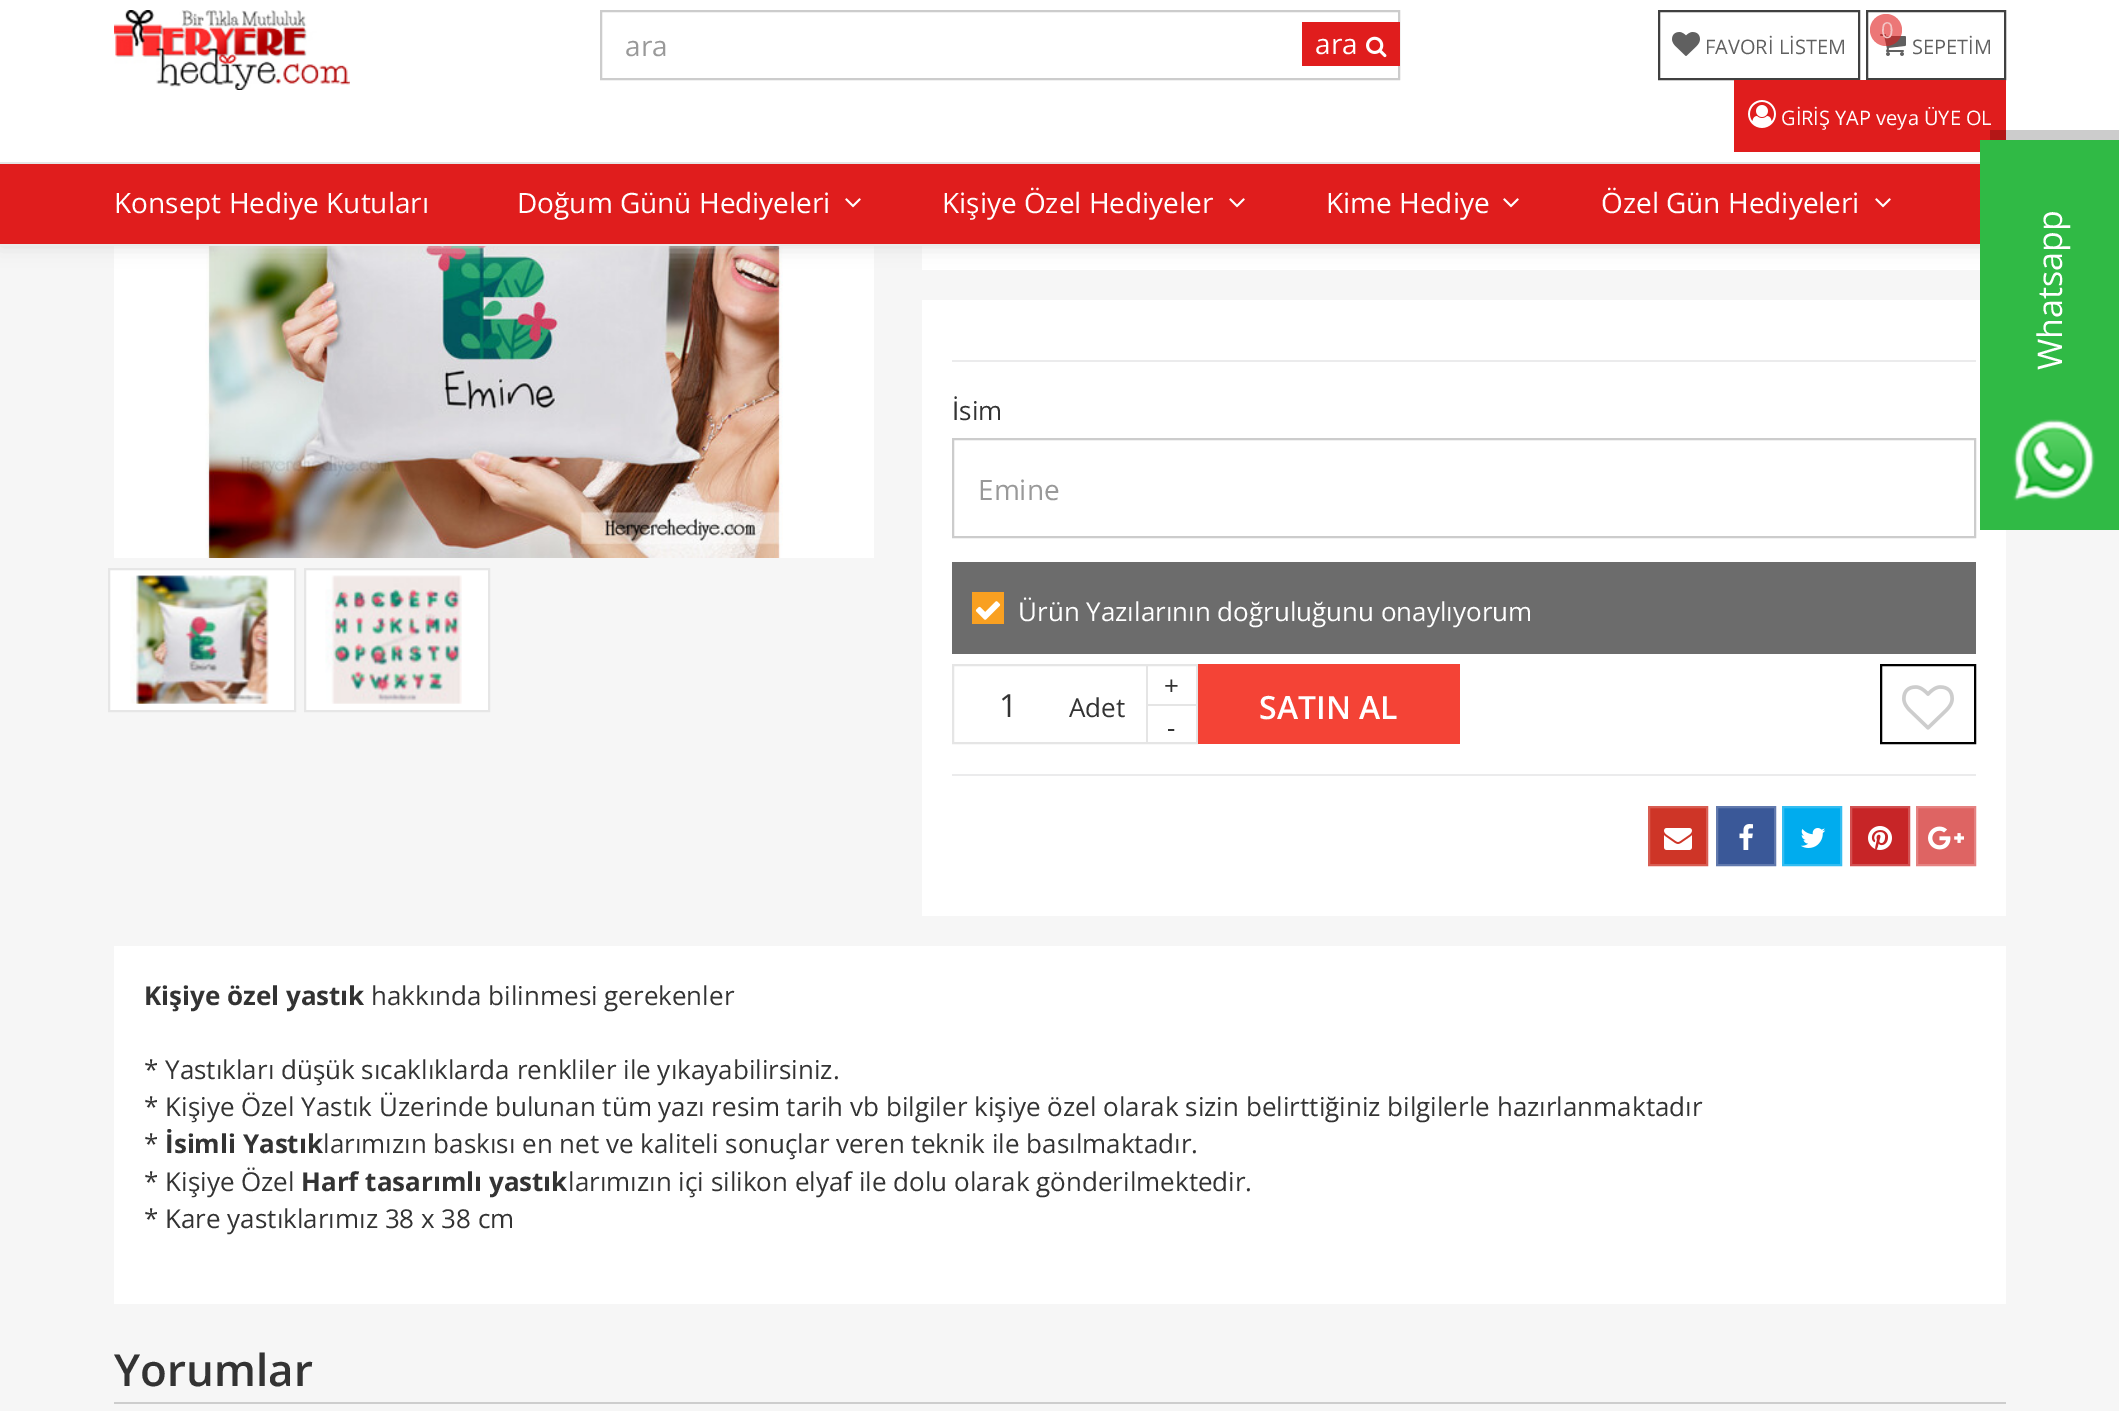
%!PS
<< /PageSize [2119 1411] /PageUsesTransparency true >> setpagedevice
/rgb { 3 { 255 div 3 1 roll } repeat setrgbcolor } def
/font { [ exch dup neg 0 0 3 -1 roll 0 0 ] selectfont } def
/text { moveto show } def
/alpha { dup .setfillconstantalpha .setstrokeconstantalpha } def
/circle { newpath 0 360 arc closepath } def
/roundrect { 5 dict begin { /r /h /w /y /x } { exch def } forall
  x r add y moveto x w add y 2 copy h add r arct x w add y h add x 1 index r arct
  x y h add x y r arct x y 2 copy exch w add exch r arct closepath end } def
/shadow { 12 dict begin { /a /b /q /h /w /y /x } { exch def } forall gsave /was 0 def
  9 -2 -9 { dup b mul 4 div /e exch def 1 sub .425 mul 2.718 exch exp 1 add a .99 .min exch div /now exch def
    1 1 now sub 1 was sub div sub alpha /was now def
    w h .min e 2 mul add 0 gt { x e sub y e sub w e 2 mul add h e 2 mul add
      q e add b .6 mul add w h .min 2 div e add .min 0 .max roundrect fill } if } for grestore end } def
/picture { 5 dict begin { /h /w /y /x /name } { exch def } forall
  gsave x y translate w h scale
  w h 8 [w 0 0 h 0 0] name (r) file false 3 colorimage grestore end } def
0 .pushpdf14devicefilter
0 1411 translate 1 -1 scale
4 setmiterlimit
246 246 246 rgb
0 0 2119 1411 rectfill
(img_07.rgb) 114 246 760 312 picture
255 255 255 rgb
922 246 1058 24 rectfill
221 221 221 rgb
0 0 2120 246 0 10 1 shadow
255 255 255 rgb
0 0 2119 162 rectfill
235 235 235 rgb
0 244 1980 2 rectfill
(img_01.rgb) 114 10 236 80 picture
204 204 204 rgb
2 setlinewidth
601 11 798 68 rectstroke
224 29 29 rgb
1302 22 98 44 rectfill
(img_02.rgb) 1366 36 21 22 picture
64 64 64 rgb
1659 11 200 68 rectstroke
(img_03.rgb) 1672 32 28 24 picture
1867 11 138 68 rectstroke
(img_04.rgb) 1880 34 26 22 picture
0.6 alpha
224 29 29 rgb
1886 30 16 circle fill
1 alpha
1734 80 272 72 rectfill
(img_05.rgb) 1748 100 28 28 picture
0 164 1980 80 rectfill
230 230 230 rgb
0 162 1980 2 rectfill
(img_06.rgb) 845 198 16 10 picture
(img_06.rgb) 1229 198 16 10 picture
(img_06.rgb) 1503 198 16 10 picture
(img_06.rgb) 1875 198 16 10 picture
255 255 255 rgb
109 569 moveto 186 0 rlineto 0 142 rlineto -186 0 rlineto closepath gsave fill grestore
230 230 230 rgb
stroke
(img_08.rgb) 130 575 139 129 picture
255 255 255 rgb
305 569 moveto 184 0 rlineto 0 142 rlineto -184 0 rlineto closepath gsave fill grestore
230 230 230 rgb
stroke
(img_09.rgb) 325 575 137 129 picture
255 255 255 rgb
922 300 1084 616 rectfill
235 235 236 rgb
952 360 1024 2 rectfill
204 204 204 rgb
953 439 1022 98 rectstroke
108 108 108 rgb
952 562 1024 92 rectfill
249 160 33 rgb
972 592 32 32 rectfill
(img_10.rgb) 975 601 26 19 picture
229 229 229 rgb
953 665 244 78 rectstroke
1146 664 2 40 rectfill
1146 704 50 2 rectfill
1146 704 2 40 rectfill
244 67 54 rgb
1198 664 262 80 rectfill
0 0 0 rgb
1881 665 94 78 rectstroke
(img_11.rgb) 1902 685 52 45 picture
235 235 236 rgb
952 774 1024 2 rectfill
206 53 39 rgb
1649 807 moveto 58 0 rlineto 0 58 rlineto -58 0 rlineto closepath gsave fill grestore
216 93 82 rgb
stroke
(img_12.rgb) 1664 828 28 22 picture
58 88 152 rgb
1717 807 moveto 58 0 rlineto 0 58 rlineto -58 0 rlineto closepath gsave fill grestore
97 121 173 rgb
stroke
(img_13.rgb) 1739 824 14 26 picture
0 172 238 rgb
1783 807 moveto 58 0 rlineto 0 58 rlineto -58 0 rlineto closepath gsave fill grestore
51 189 241 rgb
stroke
(img_14.rgb) 1800 828 26 20 picture
199 37 39 rgb
1851 807 moveto 58 0 rlineto 0 58 rlineto -58 0 rlineto closepath gsave fill grestore
210 81 82 rgb
stroke
(img_15.rgb) 1868 826 24 24 picture
222 100 99 rgb
1917 807 moveto 58 0 rlineto 0 58 rlineto -58 0 rlineto closepath gsave fill grestore
229 131 130 rgb
stroke
(img_16.rgb) 1928 826 36 24 picture
255 255 255 rgb
114 946 1892 358 rectfill
205 205 205 rgb
114 1402 1892 2 rectfill
0.2 alpha
0 0 0 rgb
1990 130 moveto 0 10 rlineto 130 0 rlineto 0 380 rlineto 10 0 rlineto 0 -390 rlineto closepath fill
1 alpha
48 186 69 rgb
1980 140 139 390 rectfill
(img_17.rgb) 2013 419 82 82 picture
/OpenSans-Regular 28 font
153 153 153 rgb
(ara) 625 56 text
255 255 255 rgb
(ara) 1315 54 text
/OpenSans-Regular 20 font
96 96 96 rgb
(FAVORİ LİSTEM) 1705 54 text
/OpenSans-Regular 22 font
242 196 196 rgb
(0) 1881 38 text
/OpenSans-Regular 20 font
96 96 96 rgb
(SEPETİM) 1912 54 text
255 255 255 rgb
(GİRİŞ YAP veya ÜYE OL) 1781 125 text
/OpenSans-Regular 28 font
(Konsept Hediye Kutuları) 114 213 text
(Doğum Günü Hediyeleri) 517 213 text
(Kişiye Özel Hediyeler) 942 213 text
(Kime Hediye) 1326 213 text
(Özel Gün Hediyeleri) 1601 213 text
/OpenSans-Regular 26 font
51 51 51 rgb
(İsim) 952 420 text
/OpenSans-Regular 28 font
153 153 153 rgb
(Emine) 978 500 text
/OpenSans-Regular 26 font
255 255 255 rgb
(Ürün Yazılarının doğruluğunu onaylıyorum) 1018 621 text
51 51 51 rgb
(+) 1164 695 text
/OpenSans-Regular 32 font
(1) 999 717 text
/OpenSans-Regular 26 font
(Adet) 1069 717 text
(-) 1167 737 text
/OpenSans-SemiBold 32 font
255 255 255 rgb
(SATIN AL) 1259 719 text
/OpenSans-Bold 26 font
51 51 51 rgb
(Kişiye özel yastık) 144 1005 text
/OpenSans-Regular 26 font
(hakkında bilinmesi gerekenler) 371 1005 text
(* Yastıkları düşük sıcaklıklarda renkliler ile yıkayabilirsiniz.) 144 1079 text
(* Kişiye Özel Yastık Üzerinde bulunan tüm yazı resim tarih vb bilgiler kişiye özel olarak sizin belirttiğiniz bilgilerle hazırlanmaktadır) 144 1116 text
(*) 144 1153 text
/OpenSans-Bold 26 font
(İsimli Yastık) 165 1153 text
/OpenSans-Regular 26 font
(larımızın baskısı en net ve kaliteli sonuçlar veren teknik ile basılmaktadır.) 323 1153 text
(* Kişiye Özel) 144 1191 text
/OpenSans-Bold 26 font
(Harf tasarımlı yastık) 301 1191 text
/OpenSans-Regular 26 font
(larımızın içi silikon elyaf ile dolu olarak gönderilmektedir.) 568 1191 text
(* Kare yastıklarımız 38 x 38 cm) 144 1228 text
/OpenSans-SemiBold 44 font
(Yorumlar) 114 1386 text
/OpenSans-Regular 34 font
255 255 255 rgb
gsave 2062 370 translate -90 rotate 0 0 moveto (Whatsapp) show grestore
.poppdf14devicefilter showpage
